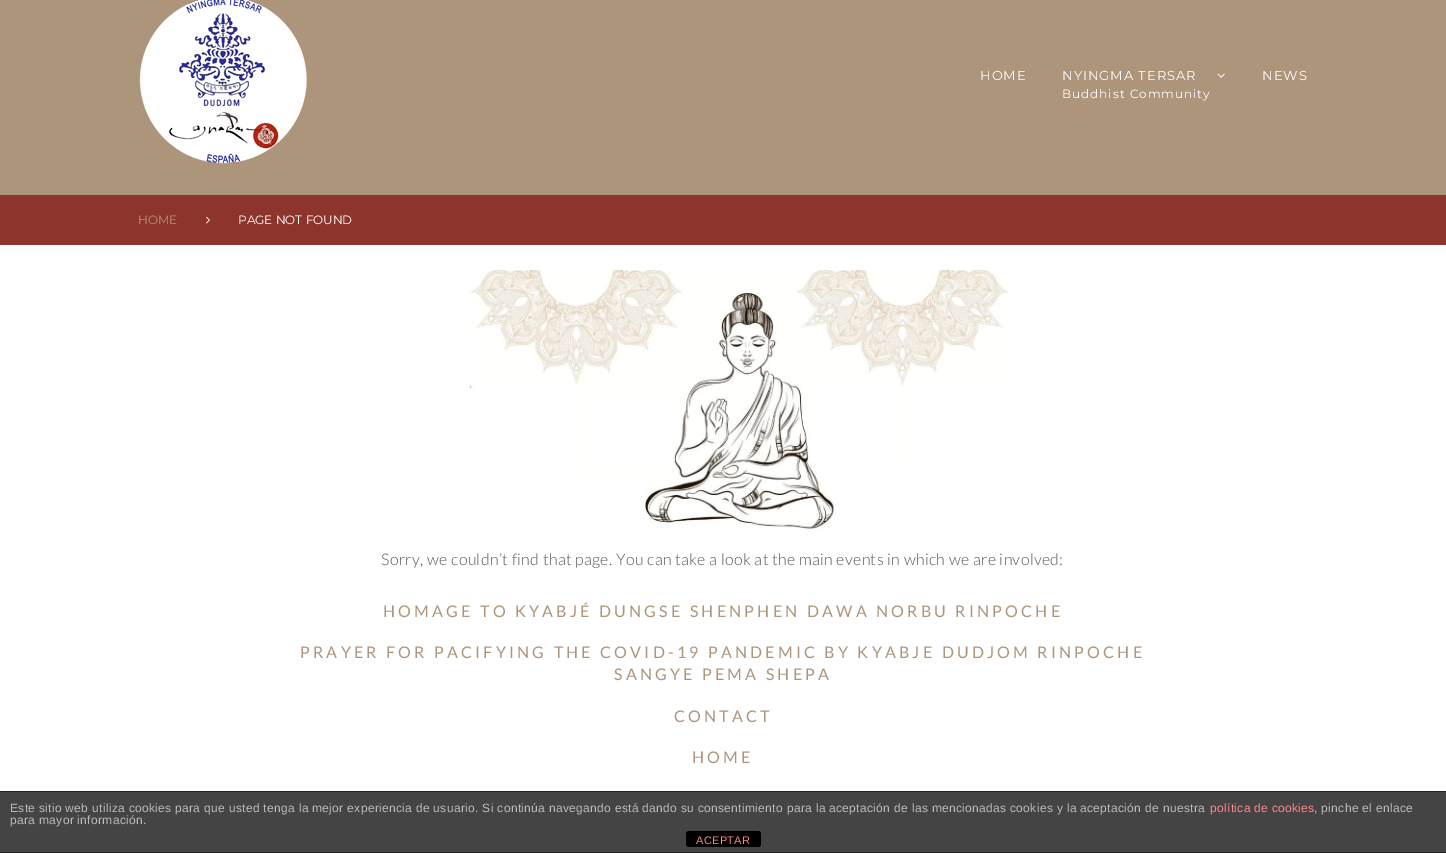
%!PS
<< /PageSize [1446 853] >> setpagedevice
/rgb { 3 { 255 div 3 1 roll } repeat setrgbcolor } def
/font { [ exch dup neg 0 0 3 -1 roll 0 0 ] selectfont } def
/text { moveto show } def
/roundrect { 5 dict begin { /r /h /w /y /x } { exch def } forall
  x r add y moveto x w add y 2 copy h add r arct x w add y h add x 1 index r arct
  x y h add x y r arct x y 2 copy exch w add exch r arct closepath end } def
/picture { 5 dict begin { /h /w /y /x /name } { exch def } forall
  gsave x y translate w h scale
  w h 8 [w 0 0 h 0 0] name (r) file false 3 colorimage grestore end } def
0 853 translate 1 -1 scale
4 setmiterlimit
255 255 255 rgb
0 0 1446 853 rectfill
173 149 123 rgb
0 0 1446 195 rectfill
(img_01.rgb) 139 0 168 164 picture
(img_02.rgb) 1217 73 8 5 picture
141 53 45 rgb
0 195 1446 50 rectfill
(img_03.rgb) 206 216 4 8 picture
(img_04.rgb) 469 270 539 261 picture
68 68 68 rgb
0 792 1446 60 rectfill
34 34 34 rgb
0 791 1446 1 rectfill
0 852 1446 1 rectfill
0 0 0 rgb
686 831 75 16 3 roundrect fill
/Montserrat-Regular 13 font
255 255 255 rgb
980 80 moveto 1 0 (HOME) ashow
1062 80 moveto 1 0 (NYINGMA TERSAR) ashow
/Montserrat-Regular 12 font
1062 98 moveto 1 0 (Buddhist Community) ashow
/Montserrat-Regular 13 font
1262 80 moveto 1 0 (NEWS) ashow
/Montserrat-Regular 12 font
173 149 123 rgb
(HOME) 138 224 text
255 255 255 rgb
(PAGE NOT FOUND) 238 224 text
/Lato-Light 16 font
85 85 85 rgb
381 565 moveto 0.32 0 (Sorry, we couldn’t find that page. You can take a look at the main events in which we are involved:) ashow
/Lato-Regular 16 font
173 149 123 rgb
383 617 moveto 3.2 0 (HOMAGE TO KYABJÉ DUNGSE SHENPHEN DAWA NORBU RINPOCHE) ashow
300 658 moveto 3.2 0 (PRAYER FOR PACIFYING THE COVID-19 PANDEMIC BY KYABJE DUDJOM RINPOCHE) ashow
614 680 moveto 3.2 0 (SANGYE PEMA SHEPA) ashow
674 722 moveto 3.2 0 (CONTACT) ashow
692 763 moveto 3.2 0 (HOME) ashow
/LiberationSans-Regular 12 font
187 187 187 rgb
10 812 moveto 0.32 0 (Este sitio web utiliza cookies para que usted tenga la mejor experiencia de usuario. Si continúa navegando está dando su consentimiento para la aceptación de las mencionadas cookies y la aceptación de nuestra) ashow
255 136 136 rgb
1210 812 moveto 0.32 0 (política de cookies) ashow
187 187 187 rgb
1314 812 moveto 0.32 0 (, pinche el enlace) ashow
10 824 moveto 0.32 0 (para mayor información.) ashow
/LiberationSans-Regular 11 font
255 136 136 rgb
696 844 moveto 0.32 0 (ACEPTAR) ashow
showpage
